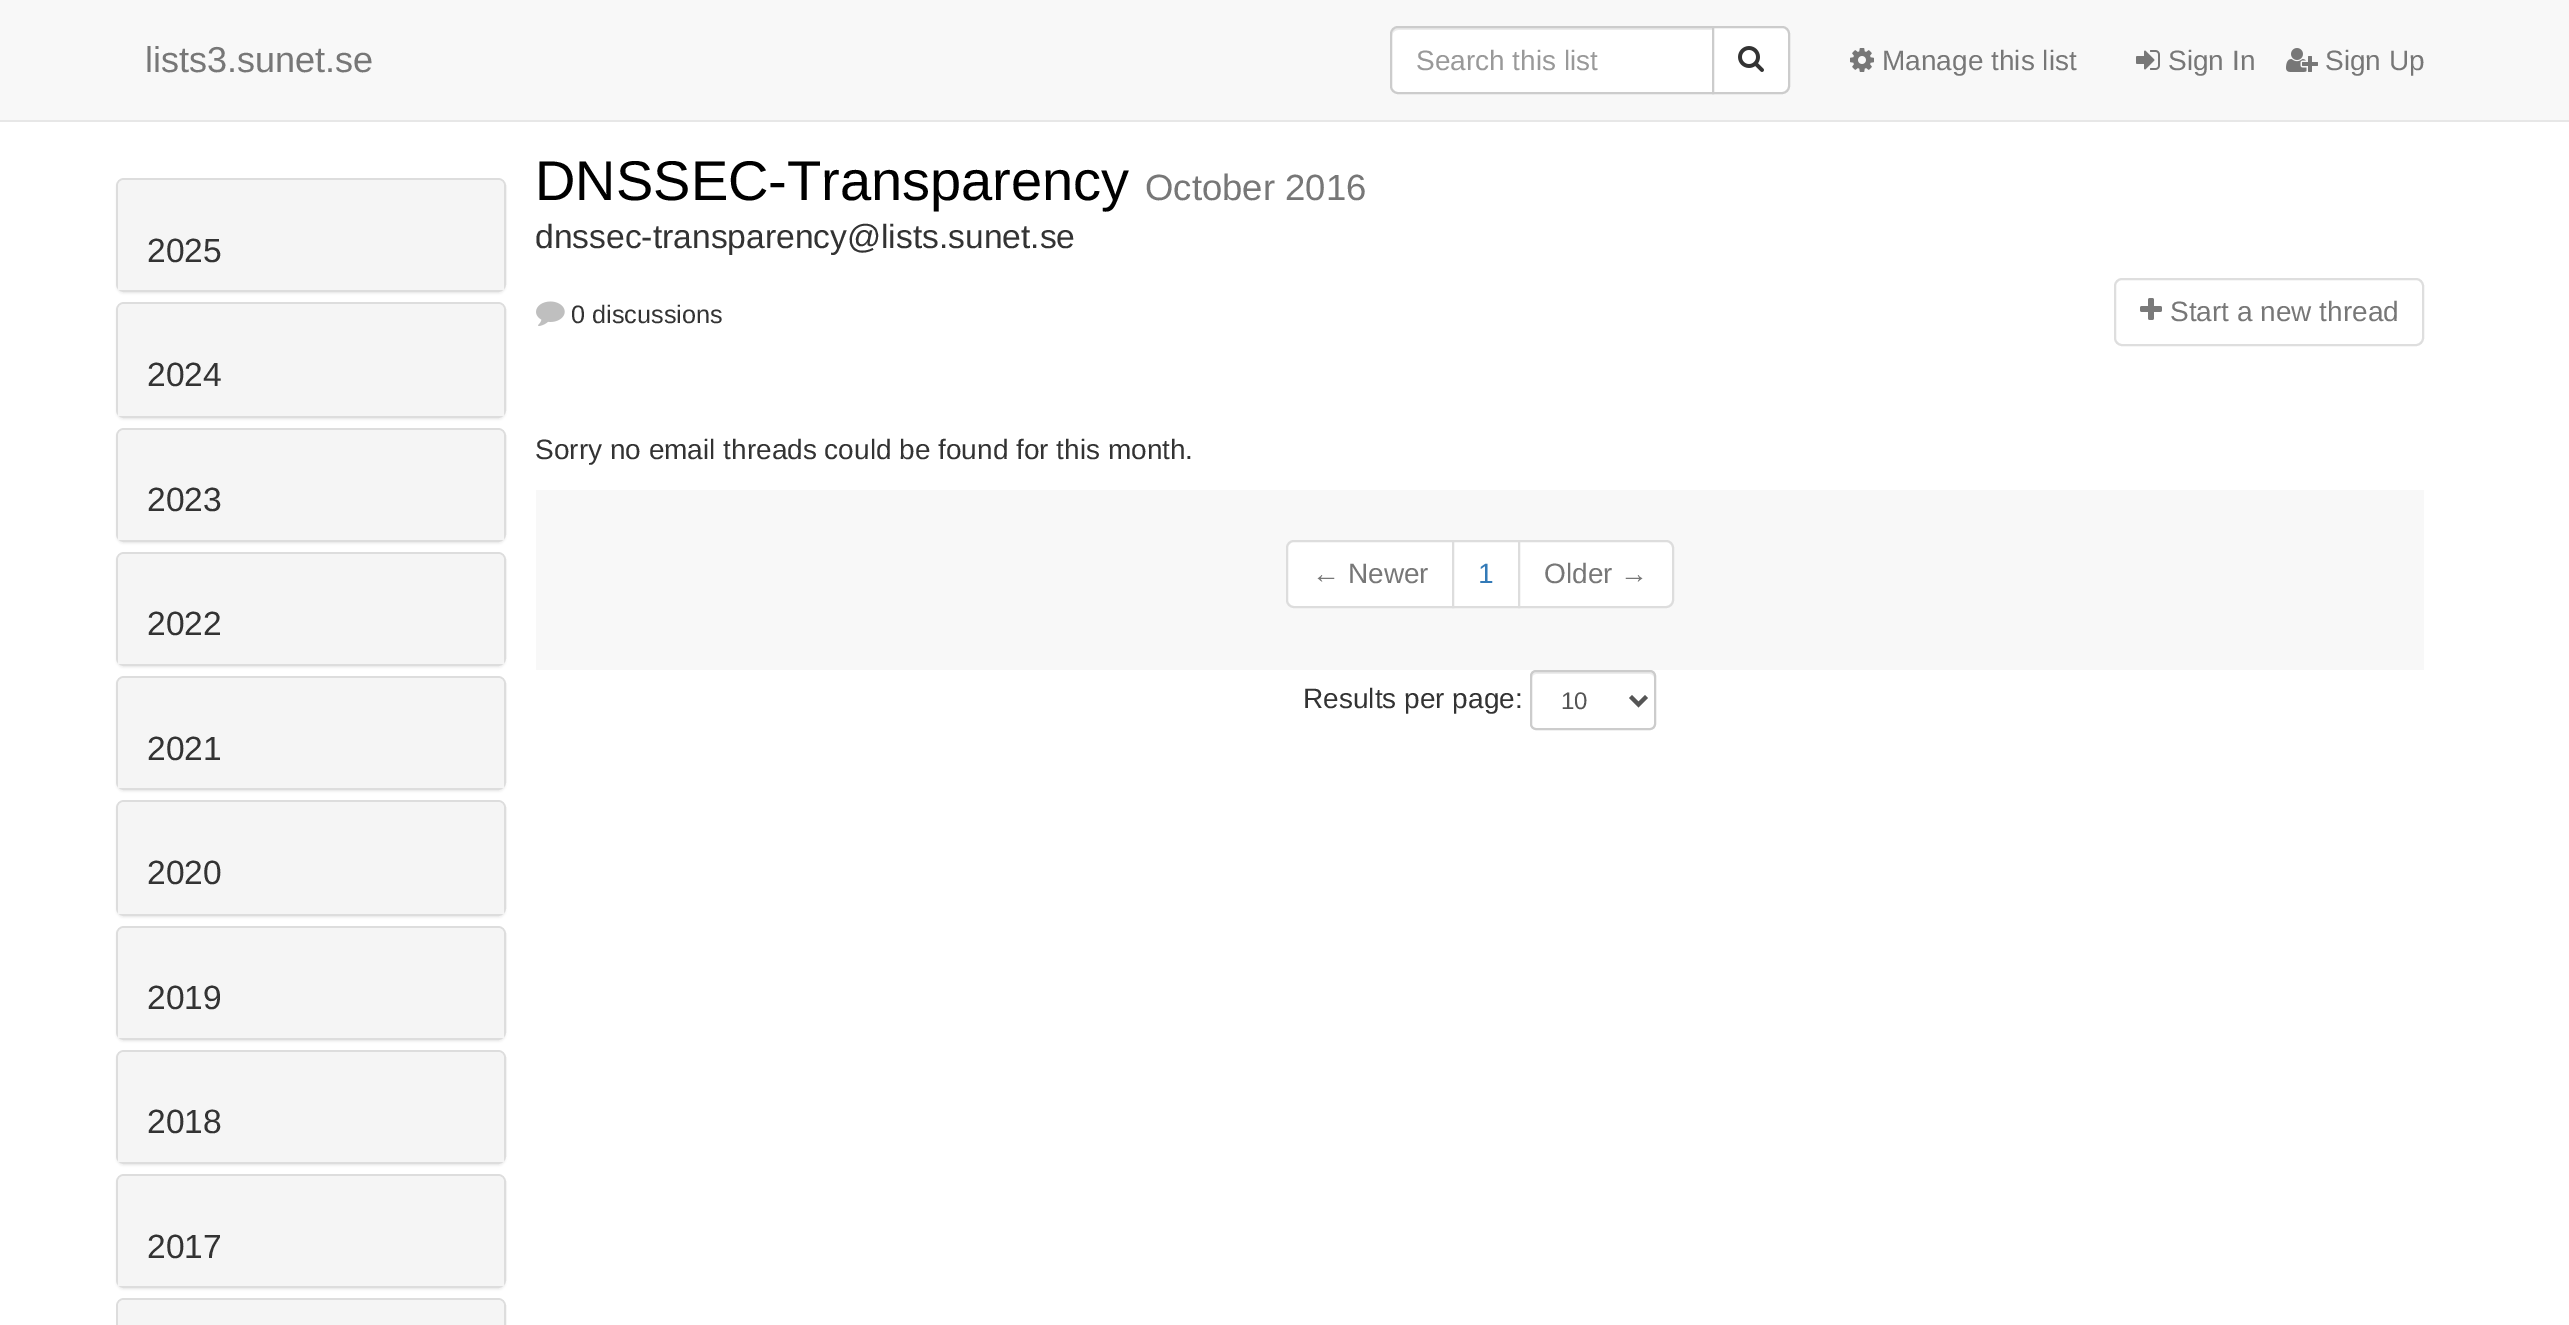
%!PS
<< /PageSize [2569 1325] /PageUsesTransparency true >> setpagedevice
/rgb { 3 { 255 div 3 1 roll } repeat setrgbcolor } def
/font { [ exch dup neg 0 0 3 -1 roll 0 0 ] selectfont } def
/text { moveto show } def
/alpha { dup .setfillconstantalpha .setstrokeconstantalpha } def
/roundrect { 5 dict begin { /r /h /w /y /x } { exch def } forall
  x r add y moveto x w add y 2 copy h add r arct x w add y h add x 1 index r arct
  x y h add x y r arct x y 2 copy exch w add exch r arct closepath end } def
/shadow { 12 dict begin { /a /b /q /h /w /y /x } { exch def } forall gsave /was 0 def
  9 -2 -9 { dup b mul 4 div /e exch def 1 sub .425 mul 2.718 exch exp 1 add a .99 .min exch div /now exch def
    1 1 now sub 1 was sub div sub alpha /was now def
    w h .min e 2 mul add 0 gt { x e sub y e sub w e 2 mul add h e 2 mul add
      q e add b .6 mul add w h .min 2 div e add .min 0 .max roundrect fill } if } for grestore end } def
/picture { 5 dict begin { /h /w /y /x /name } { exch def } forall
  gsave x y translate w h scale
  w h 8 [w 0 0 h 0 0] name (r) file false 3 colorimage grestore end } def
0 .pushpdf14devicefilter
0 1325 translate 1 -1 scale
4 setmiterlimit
255 255 255 rgb
0 0 2569 1325 rectfill
248 248 248 rgb
0 0 2569 120 rectfill
231 231 231 rgb
0 120 2569 2 rectfill
255 255 255 rgb
1398 26 moveto 316 0 rlineto 0 68 rlineto -316 0 rlineto -4.5 0 -8 -3.5 -8 -8 rcurveto 0 -52 rlineto 0 -4.5 3.5 -8 8 -8 rcurveto closepath fill
236 236 236 rgb
1398 30 moveto 314 0 rlineto 0 -2 rlineto -315 0 rlineto -4 1 -5 5 -5 8 rcurveto 0 -3 3 -6 6 -6 rcurveto closepath fill
204 204 204 rgb
2 setlinewidth
1398 27 moveto 315 0 rlineto 0 66 rlineto -315 0 rlineto -4 0 -7 -3 -7 -7 rcurveto 0 -52 rlineto 0 -4 3 -7 7 -7 rcurveto closepath stroke
255 255 255 rgb
1713 27 moveto 69 0 rlineto 4 0 7 3 7 7 rcurveto 0 52 rlineto 0 4 -3 7 -7 7 rcurveto -69 0 rlineto closepath gsave fill grestore
204 204 204 rgb
stroke
(img_01.rgb) 1738 46 26 26 picture
(img_02.rgb) 1850 48 24 24 picture
(img_03.rgb) 2136 50 24 20 picture
(img_04.rgb) 2286 48 32 24 picture
0 0 0 rgb
116 180 390 114 8 1 0.05 shadow
221 221 221 rgb
117 179 388 112 7 roundrect stroke
245 245 245 rgb
124 180 moveto 374 0 rlineto 3.5 0 6 2.5 6 6 rcurveto 0 104 rlineto -386 0 rlineto 0 -104 rlineto 0 -3.5 2.5 -6 6 -6 rcurveto closepath fill
0 0 0 rgb
116 304 390 116 8 1 0.05 shadow
221 221 221 rgb
117 303 388 114 7 roundrect stroke
245 245 245 rgb
124 304 moveto 374 0 rlineto 3.5 0 6 2.5 6 6 rcurveto 0 106 rlineto -386 0 rlineto 0 -106 rlineto 0 -3.5 2.5 -6 6 -6 rcurveto closepath fill
0 0 0 rgb
116 430 390 114 8 1 0.05 shadow
221 221 221 rgb
117 429 388 112 7 roundrect stroke
245 245 245 rgb
124 430 moveto 374 0 rlineto 3.5 0 6 2.5 6 6 rcurveto 0 104 rlineto -386 0 rlineto 0 -104 rlineto 0 -3.5 2.5 -6 6 -6 rcurveto closepath fill
0 0 0 rgb
116 554 390 114 8 1 0.05 shadow
221 221 221 rgb
117 553 388 112 7 roundrect stroke
245 245 245 rgb
124 554 moveto 374 0 rlineto 3.5 0 6 2.5 6 6 rcurveto 0 104 rlineto -386 0 rlineto 0 -104 rlineto 0 -3.5 2.5 -6 6 -6 rcurveto closepath fill
0 0 0 rgb
116 678 390 114 8 1 0.05 shadow
221 221 221 rgb
117 677 388 112 7 roundrect stroke
245 245 245 rgb
124 678 moveto 374 0 rlineto 3.5 0 6 2.5 6 6 rcurveto 0 104 rlineto -386 0 rlineto 0 -104 rlineto 0 -3.5 2.5 -6 6 -6 rcurveto closepath fill
0 0 0 rgb
116 802 390 116 8 1 0.05 shadow
221 221 221 rgb
117 801 388 114 7 roundrect stroke
245 245 245 rgb
124 802 moveto 374 0 rlineto 3.5 0 6 2.5 6 6 rcurveto 0 106 rlineto -386 0 rlineto 0 -106 rlineto 0 -3.5 2.5 -6 6 -6 rcurveto closepath fill
0 0 0 rgb
116 928 390 114 8 1 0.05 shadow
221 221 221 rgb
117 927 388 112 7 roundrect stroke
245 245 245 rgb
124 928 moveto 374 0 rlineto 3.5 0 6 2.5 6 6 rcurveto 0 104 rlineto -386 0 rlineto 0 -104 rlineto 0 -3.5 2.5 -6 6 -6 rcurveto closepath fill
0 0 0 rgb
116 1052 390 114 8 1 0.05 shadow
221 221 221 rgb
117 1051 388 112 7 roundrect stroke
245 245 245 rgb
124 1052 moveto 374 0 rlineto 3.5 0 6 2.5 6 6 rcurveto 0 104 rlineto -386 0 rlineto 0 -104 rlineto 0 -3.5 2.5 -6 6 -6 rcurveto closepath fill
0 0 0 rgb
116 1176 390 114 8 1 0.05 shadow
221 221 221 rgb
117 1175 388 112 7 roundrect stroke
245 245 245 rgb
124 1176 moveto 374 0 rlineto 3.5 0 6 2.5 6 6 rcurveto 0 104 rlineto -386 0 rlineto 0 -104 rlineto 0 -3.5 2.5 -6 6 -6 rcurveto closepath fill
221 221 221 rgb
117 1299 388 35 7 roundrect stroke
245 245 245 rgb
124 1300 moveto 374 0 rlineto 3.5 0 6 2.5 6 6 rcurveto 0 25 rlineto -386 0 rlineto 0 -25 rlineto 0 -3.5 2.5 -6 6 -6 rcurveto closepath fill
(img_05.rgb) 536 301 29 25 picture
222 222 222 rgb
2115 279 308 66 7 roundrect stroke
(img_06.rgb) 2140 298 22 22 picture
248 248 248 rgb
536 490 1888 180 rectfill
255 255 255 rgb
1294 541 moveto 159 0 rlineto 0 66 rlineto -159 0 rlineto -4 0 -7 -3 -7 -7 rcurveto 0 -52 rlineto 0 -4 3 -7 7 -7 rcurveto closepath gsave fill grestore
221 221 221 rgb
stroke
255 255 255 rgb
1453 541 moveto 66 0 rlineto 0 66 rlineto -66 0 rlineto closepath gsave fill grestore
221 221 221 rgb
stroke
255 255 255 rgb
1519 541 moveto 147 0 rlineto 4 0 7 3 7 7 rcurveto 0 52 rlineto 0 4 -3 7 -7 7 rcurveto -147 0 rlineto closepath gsave fill grestore
221 221 221 rgb
stroke
236 236 236 rgb
1536 674 moveto 114 0 rlineto 2 0 4 2 4 4 rcurveto 0 -2 rlineto 0 -2 -2 -4 -4 -4 rcurveto -114 0 rlineto -2 0 -4 2 -4 4 rcurveto 0 2 rlineto 0 -2 2 -4 4 -4 rcurveto closepath fill
204 204 204 rgb
1531 671 124 58 5 roundrect stroke
85 85 85 rgb
4 setlinewidth
1630.5 696.5 moveto 8 8 rlineto 8 -8 rlineto stroke
/LiberationSans-Regular 36 font
119 119 119 rgb
(lists3.sunet.se) 145 72 text
/LiberationSans-Regular 28 font
153 153 153 rgb
(Search this list) 1416 70 text
119 119 119 rgb
(Manage this list) 1882 70 text
(Sign In) 2168 70 text
(Sign Up) 2325 70 text
/LiberationSans-Regular 33.6 font
51 51 51 rgb
(2025) 147 262 text
(2024) 147 386 text
(2023) 147 511 text
(2022) 147 635 text
(2021) 147 760 text
(2020) 147 884 text
(2019) 147 1009 text
(2018) 147 1133 text
(2017) 147 1258 text
/LiberationSans-Regular 56 font
0 0 0 rgb
(DNSSEC-Transparency) 535 200 text
/LiberationSans-Regular 36.5 font
119 119 119 rgb
(October 2016) 1145 200 text
/LiberationSans-Regular 33.6 font
51 51 51 rgb
(dnssec-transparency@lists.sunet.se) 535 248 text
/LiberationSans-Regular 25.25 font
(0 discussions) 571 323 text
/LiberationSans-Regular 28 font
119 119 119 rgb
(Start a new thread) 2170 321 text
51 51 51 rgb
(Sorry no email threads could be found for this month.) 535 459 text
119 119 119 rgb
(← Newer) 1312 583 text
51 122 183 rgb
(1) 1478 583 text
119 119 119 rgb
(Older →) 1544 583 text
51 51 51 rgb
(Results per page:) 1303 708 text
/LiberationSans-Regular 24 font
85 85 85 rgb
(10) 1561 709 text
.poppdf14devicefilter showpage
